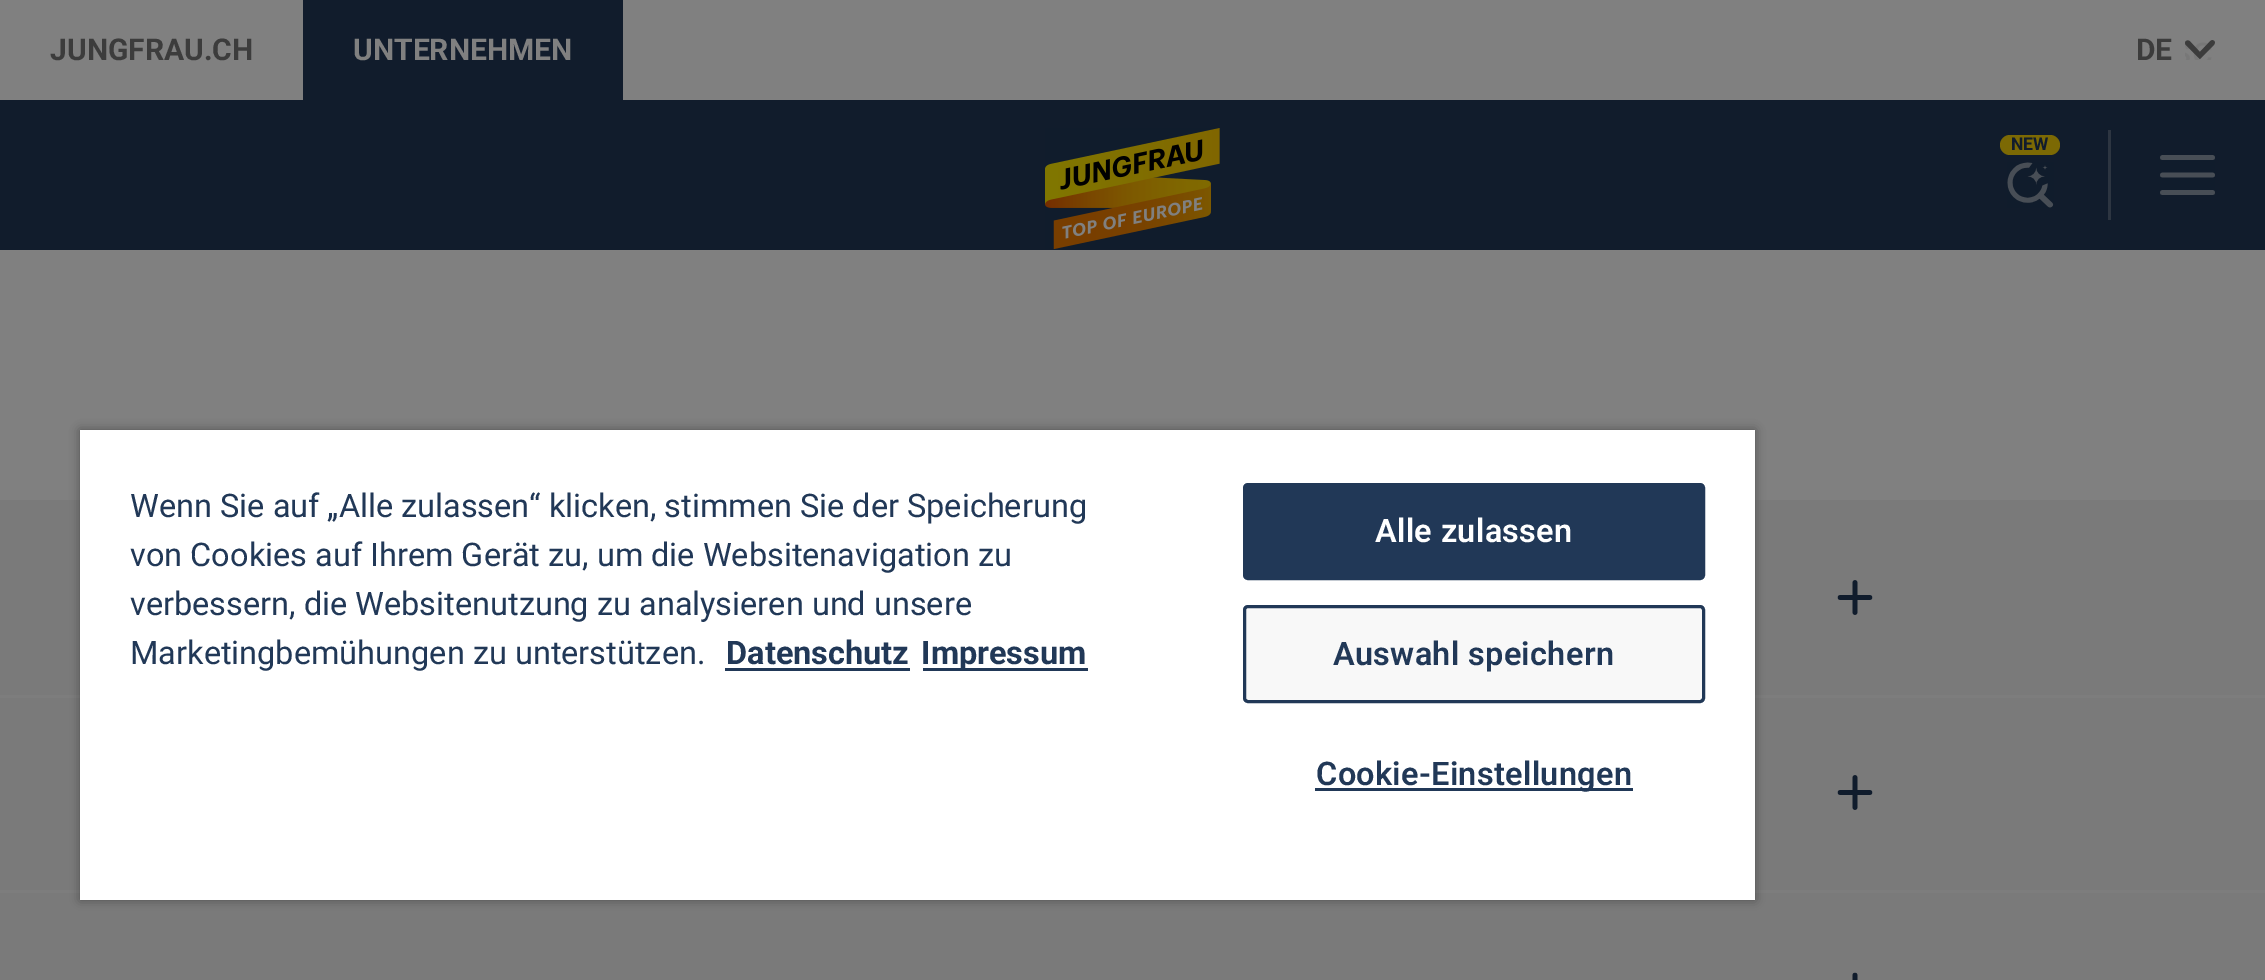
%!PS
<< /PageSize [2265 980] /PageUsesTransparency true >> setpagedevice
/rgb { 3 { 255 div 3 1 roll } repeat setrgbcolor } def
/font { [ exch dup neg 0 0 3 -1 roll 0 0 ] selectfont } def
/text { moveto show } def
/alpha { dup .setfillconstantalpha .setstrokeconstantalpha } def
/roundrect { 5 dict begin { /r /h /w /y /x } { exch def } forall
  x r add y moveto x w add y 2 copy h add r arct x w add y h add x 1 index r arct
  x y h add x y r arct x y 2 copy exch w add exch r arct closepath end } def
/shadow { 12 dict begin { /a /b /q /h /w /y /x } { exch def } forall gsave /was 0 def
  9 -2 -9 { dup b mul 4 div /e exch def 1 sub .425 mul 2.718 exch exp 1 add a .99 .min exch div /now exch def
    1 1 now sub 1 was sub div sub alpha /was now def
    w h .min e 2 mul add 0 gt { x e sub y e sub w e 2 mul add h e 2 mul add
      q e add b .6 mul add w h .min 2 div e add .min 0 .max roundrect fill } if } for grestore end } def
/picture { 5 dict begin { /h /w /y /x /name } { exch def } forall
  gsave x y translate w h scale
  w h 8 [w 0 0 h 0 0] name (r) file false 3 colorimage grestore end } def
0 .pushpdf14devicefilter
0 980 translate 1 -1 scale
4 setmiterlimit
128 128 128 rgb
0 0 2265 980 rectfill
17 28 44 rgb
303 0 320 100 rectfill
(img_01.rgb) 2185 40 30 20 picture
0 100 2265 150 rectfill
(img_02.rgb) 1045 128 175 121 picture
124 105 4 rgb
2000 135 60 20 10 roundrect fill
(img_03.rgb) 2007 162 47 46 picture
45 53 65 rgb
2108 130 3 90 rectfill
(img_04.rgb) 2160 155 55 40 picture
122 122 122 rgb
0 500 2265 480 rectfill
125 125 125 rgb
0 695 2265 3 rectfill
0 890 2265 3 rectfill
0 0 0 rgb
80 430 1675 470 0 5 0.35 shadow
255 255 255 rgb
80 430 1675 470 rectfill
33 56 87 rgb
725 668 185 3 rectfill
923 668 165 3 rectfill
1244.5 484.5 459 94 3.5 roundrect gsave fill grestore
3 setlinewidth
stroke
248 248 248 rgb
1244.5 606.5 459 95 3.5 roundrect gsave fill grestore
33 56 87 rgb
stroke
1315 788 318 3 rectfill
(img_05.rgb) 1837 580 36 35 picture
(img_05.rgb) 1837 775 36 35 picture
(img_06.rgb) 1852 972 6 8 picture
/Roboto-Bold 30 font
60 60 60 rgb
(JUNGFRAU.CH) 50 60 text
128 128 128 rgb
(UNTERNEHMEN) 353 60 text
60 60 60 rgb
(DE) 2136 60 text
/Roboto-Bold 17.5 font
17 28 44 rgb
(NEW) 2011 150 text
/Roboto-Regular 32.5 font
33 56 87 rgb
(Wenn Sie auf „Alle zulassen“ klicken, stimmen Sie der Speicherung) 130 517 text
(von Cookies auf Ihrem Gerät zu, um die Websitenavigation zu) 130 566 text
(verbessern, die Websitenutzung zu analysieren und unsere) 130 615 text
(Marketingbemühungen zu unterstützen.) 130 664 text
/Roboto-Bold 32.5 font
(Datenschutz) 726 664 text
(Impressum) 921 664 text
/Roboto-SemiBold 32.5 font
255 255 255 rgb
1375 542 moveto 0.3 0 (Alle zulassen) ashow
33 56 87 rgb
1333 665 moveto 0.3 0 (Auswahl speichern) ashow
1316 785 moveto 0.3 0 (Cookie-Einstellungen) ashow
.poppdf14devicefilter showpage
